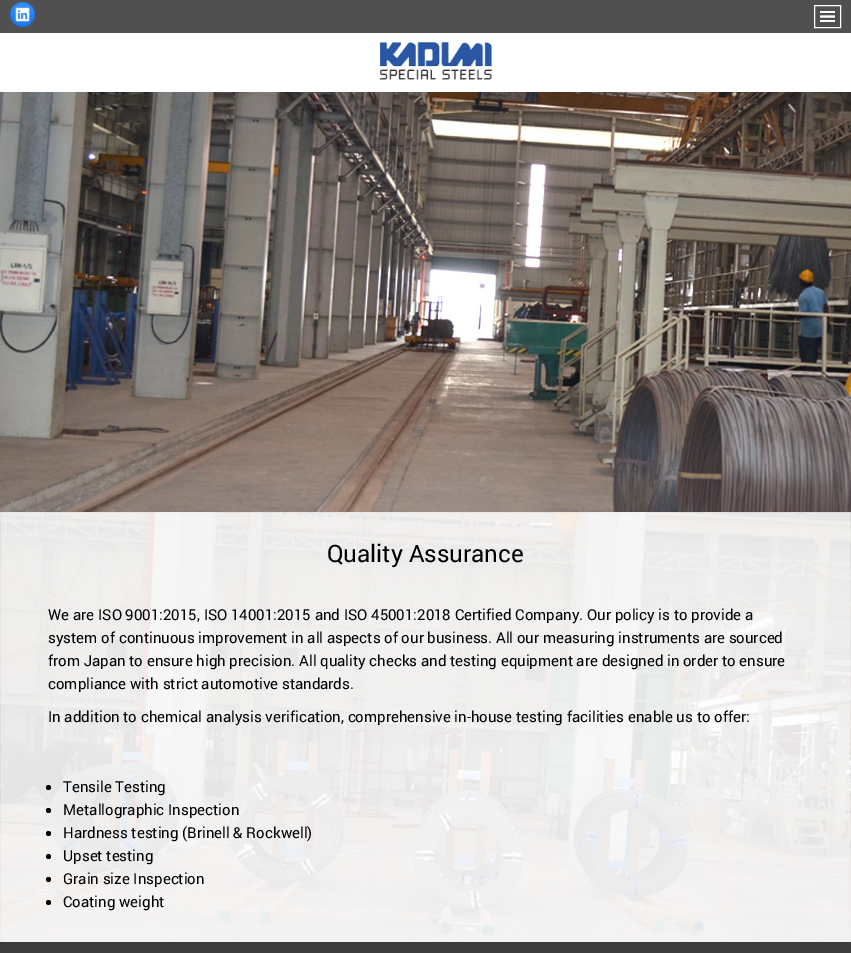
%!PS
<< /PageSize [851 953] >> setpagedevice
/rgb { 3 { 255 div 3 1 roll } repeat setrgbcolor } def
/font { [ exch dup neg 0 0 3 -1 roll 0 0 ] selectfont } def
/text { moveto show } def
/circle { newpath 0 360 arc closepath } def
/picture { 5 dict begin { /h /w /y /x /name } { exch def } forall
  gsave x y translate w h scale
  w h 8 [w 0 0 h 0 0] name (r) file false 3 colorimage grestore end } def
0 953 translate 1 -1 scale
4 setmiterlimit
255 255 255 rgb
0 0 851 953 rectfill
80 80 80 rgb
0 0 851 33 rectfill
(img_01.rgb) 10 2 25 25 picture
255 255 255 rgb
814.5 5.5 26 22 rectstroke
(img_02.rgb) 820 11 15 11 picture
(img_03.rgb) 379 42 114 38 picture
(img_04.rgb) 0 92 851 420 picture
(img_05.rgb) 0 512 851 430 picture
0 0 0 rgb
48.5 787.5 2.5 circle fill
48.5 810.5 2.5 circle fill
48.5 833.5 2.5 circle fill
48.5 856.5 2.5 circle fill
48.5 879.5 2.5 circle fill
48.5 902.5 2.5 circle fill
60 60 60 rgb
0 942 851 11 rectfill
/Roboto-Regular 24 font
0 0 0 rgb
(Quality Assurance) 327 562 text
/Roboto-Regular 15 font
(We are ISO 9001:2015, ISO 14001:2015 and ISO 45001:2018 Certified Company. Our policy is to provide a) 48 620 text
(system of continuous improvement in all aspects of our business. All our measuring instruments are sourced) 48 643 text
(from Japan to ensure high precision. All quality checks and testing equipment are designed in order to ensure) 48 666 text
(compliance with strict automotive standards.) 48 689 text
(In addition to chemical analysis verification, comprehensive in-house testing facilities enable us to offer:) 48 722 text
(Tensile Testing) 63 792 text
(Metallographic Inspection) 63 815 text
(Hardness testing \(Brinell & Rockwell\)) 63 838 text
(Upset testing) 63 861 text
(Grain size Inspection) 63 884 text
(Coating weight) 63 907 text
showpage
